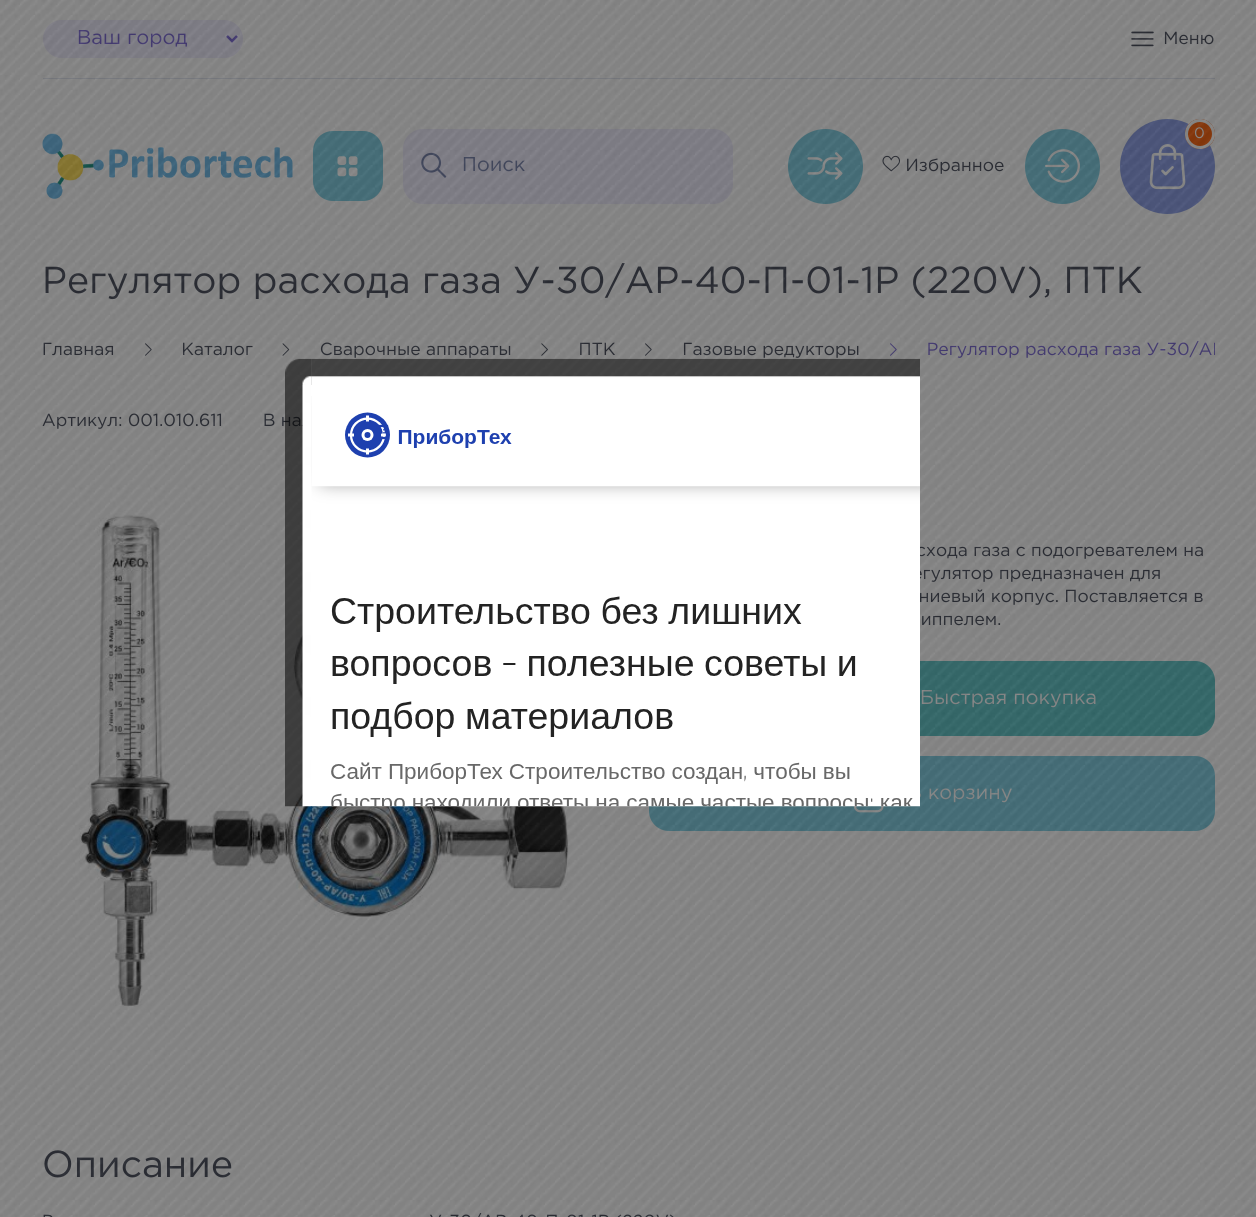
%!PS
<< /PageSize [1256 1217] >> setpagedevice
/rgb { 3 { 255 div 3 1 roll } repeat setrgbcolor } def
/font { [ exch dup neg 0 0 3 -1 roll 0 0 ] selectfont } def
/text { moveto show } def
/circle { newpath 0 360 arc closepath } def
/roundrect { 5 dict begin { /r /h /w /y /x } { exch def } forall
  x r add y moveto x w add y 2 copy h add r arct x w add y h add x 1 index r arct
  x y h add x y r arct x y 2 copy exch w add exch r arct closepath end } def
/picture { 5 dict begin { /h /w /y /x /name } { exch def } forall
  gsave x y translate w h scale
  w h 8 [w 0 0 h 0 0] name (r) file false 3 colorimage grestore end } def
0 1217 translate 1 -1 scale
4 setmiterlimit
255 255 255 rgb
0 0 1256 1217 rectfill
226 230 241 rgb
43 78 1172 1 rectfill
241 238 255 rgb
43 20 200 38 19 roundrect fill
126 108 214 rgb
2.5 setlinewidth
227 36 moveto 5 5 rlineto 5 -5 rlineto stroke
(img_02.rgb) 1131 31 23 16 picture
(img_03.rgb) 42 133 251 66 picture
130 209 228 rgb
313 131 70 70 20 roundrect fill
(img_04.rgb) 337 156 21 21 picture
241 238 255 rgb
403 129 330 75 20 roundrect fill
(img_05.rgb) 421 152 26 26 picture
130 209 228 rgb
825.5 166.5 37.5 circle fill
(img_06.rgb) 807 152 36 28 picture
(img_07.rgb) 882 155 18 17 picture
1062.5 166.5 37.5 circle fill
(img_08.rgb) 1045 149 35 34 picture
142 161 232 rgb
1167.5 166.5 47.5 circle fill
(img_09.rgb) 1149 144 37 46 picture
255 103 17 rgb
1200 134 13.5 circle gsave fill grestore
255 255 255 rgb
3 setlinewidth
stroke
(img_10.rgb) 145 343 7 13 picture
(img_11.rgb) 282 343 8 13 picture
(img_12.rgb) 541 343 7 13 picture
(img_10.rgb) 645 343 7 13 picture
(img_13.rgb) 890 343 7 13 picture
(img_14.rgb) 79 510 490 497 picture
99 198 201 rgb
803 661 412 75 20 roundrect fill
130 209 228 rgb
649 756 566 75 20 roundrect fill
(img_15.rgb) 853 806 31 7 picture
/Gotham-Bold 20 font
126 108 214 rgb
(Ваш город) 77 44 text
/Gotham-Regular 17.5 font
76 81 95 rgb
(Меню) 1163 44 text
/Gotham-Bold 20 font
123 134 174 rgb
(Поиск) 462 171 text
/Gotham-Regular 17.5 font
76 81 95 rgb
(Избранное) 905 171 text
/Gotham-Regular 15 font
255 255 255 rgb
(0) 1194 138 text
/Gotham-Bold 37.5 font
76 81 95 rgb
(Регулятор расхода газа У-30/АР-40-П-01-1Р \(220V\), ПТК) 42 293 text
/Gotham-Regular 17.5 font
(Главная) 42 355 text
(Каталог) 181 355 text
(Сварочные аппараты) 320 355 text
(ПТК) 578 355 text
(Газовые редукторы) 682 355 text
126 108 214 rgb
(Регулятор расхода газа У-30/А) 927 355 text
76 81 95 rgb
(Артикул: 001.010.611) 42 426 text
(В) 263 426 text
(хода газа с подогревателем на) 926 556 text
(гулятор предназначен для) 923 579 text
(ниевый корпус. Поставляется в) 919 602 text
(иппелем.) 921 625 text
/Gotham-Regular 20 font
255 255 255 rgb
(Быстрая покупка) 920 704 text
(корзину) 928 799 text
/Gotham-Bold 37.5 font
76 81 95 rgb
(Описание) 42 1177 text
(img_01.rgb) 0 0 1256 1217 picture
(img_16.rgb) 285 358 27 27 picture
(img_17.rgb) 311 358 609 27 picture
(img_18.rgb) 285 385 27 422 picture
255 255 255 rgb
311 385 609 421 rectfill
(img_19.rgb) 311 396 609 411 picture
showpage
